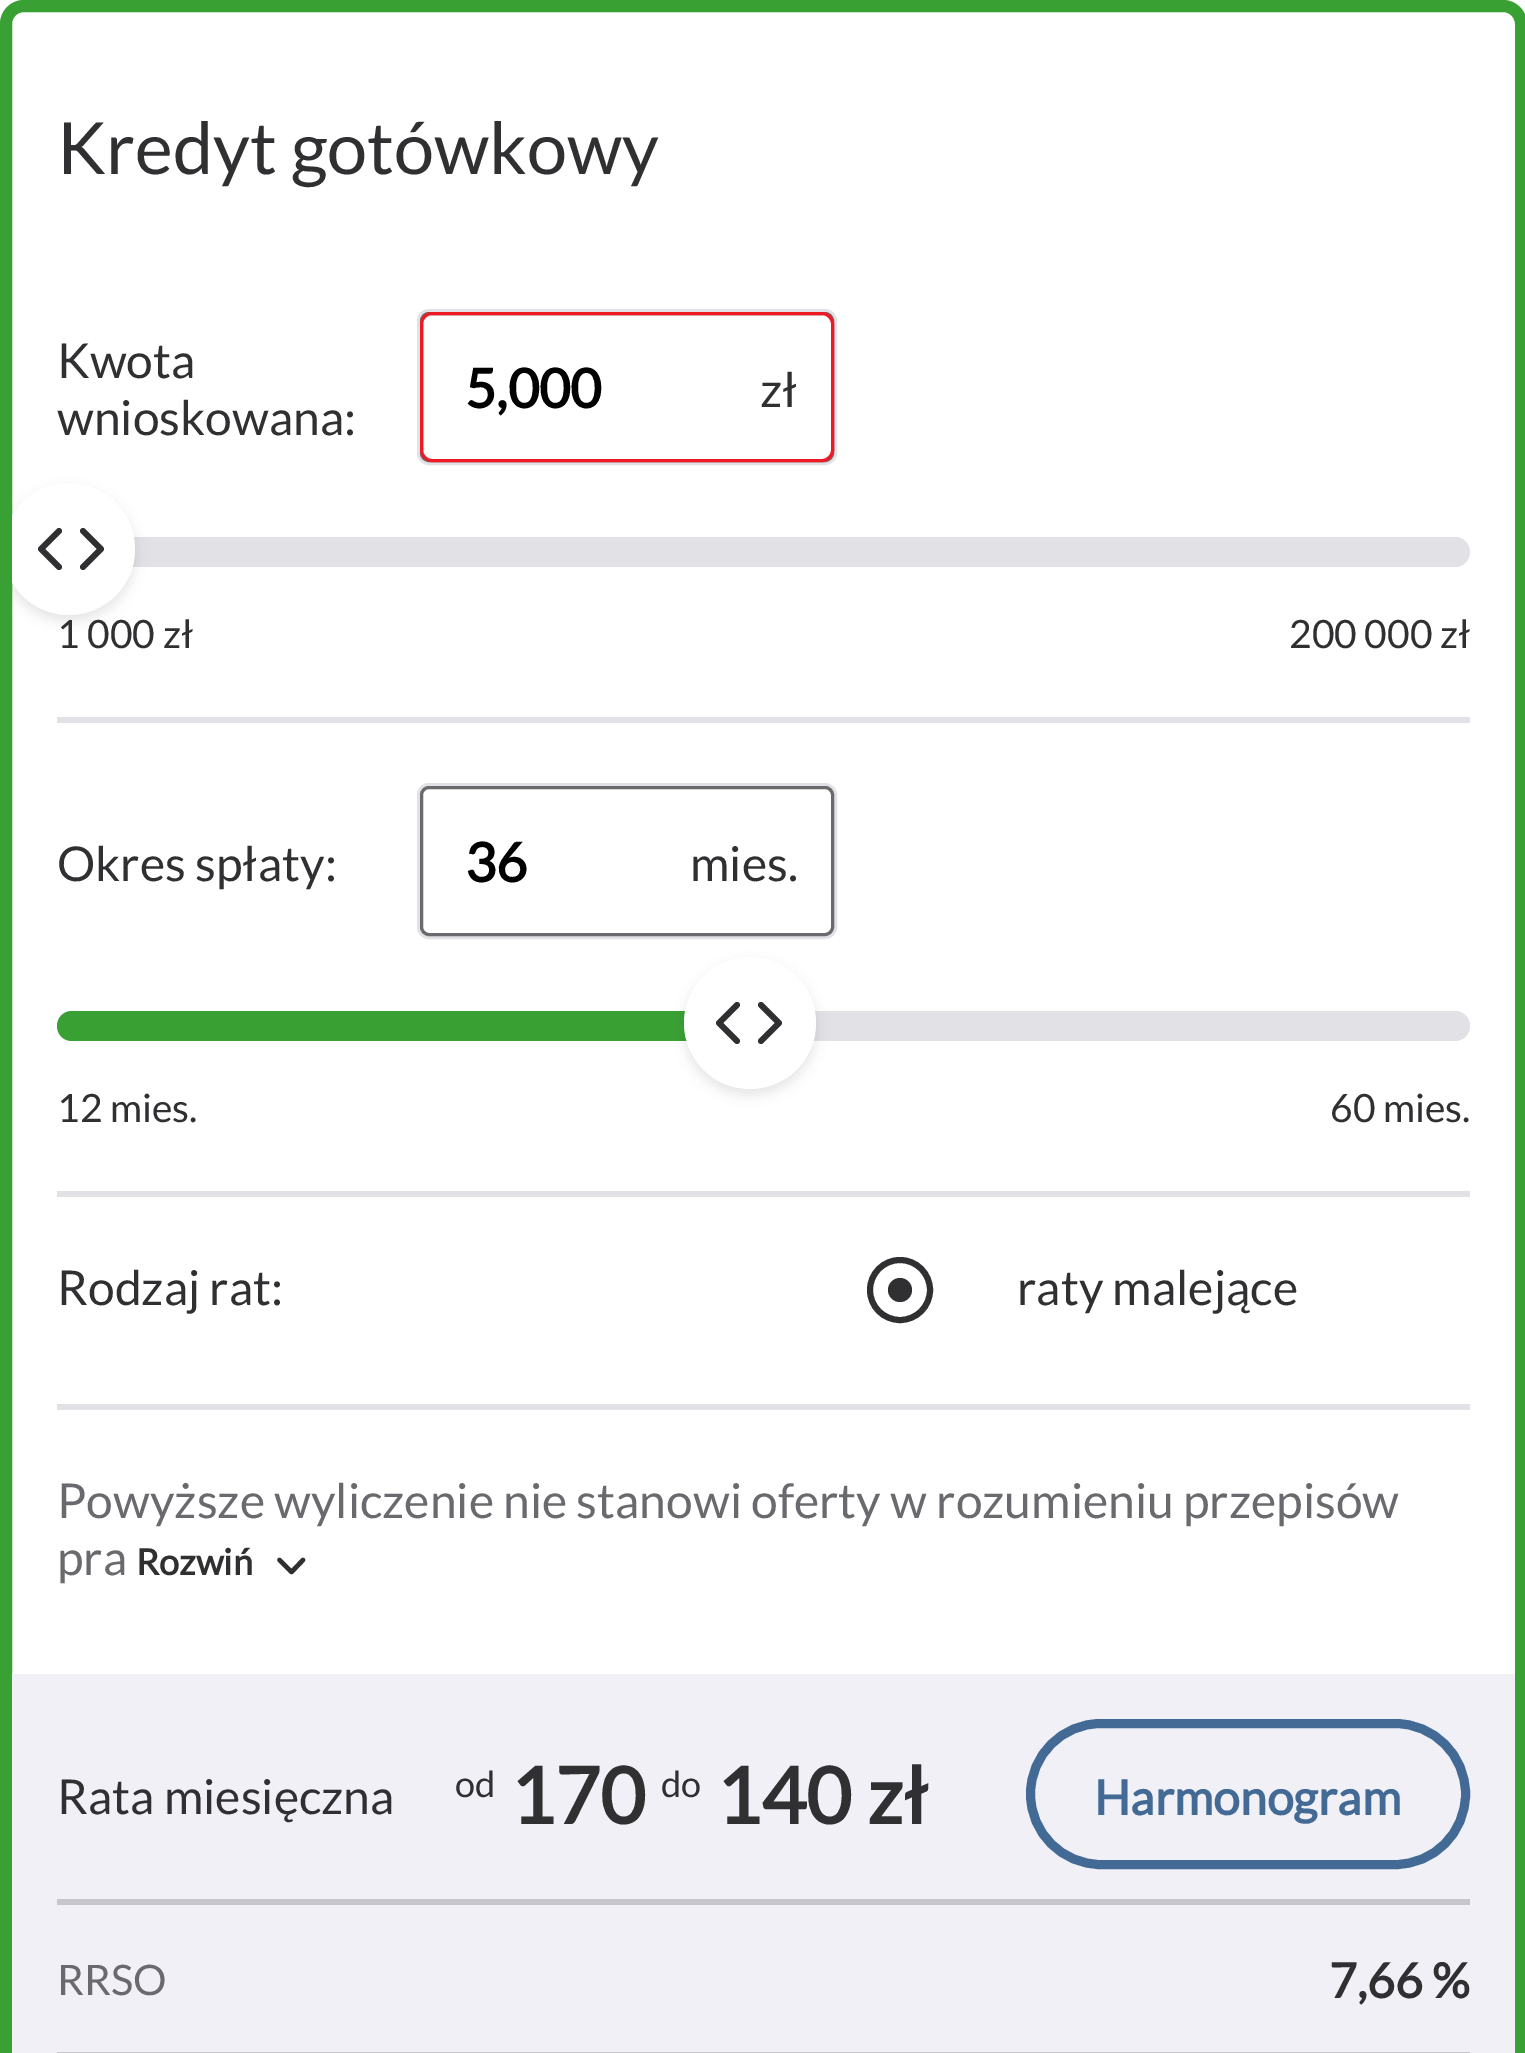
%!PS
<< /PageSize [1525 2053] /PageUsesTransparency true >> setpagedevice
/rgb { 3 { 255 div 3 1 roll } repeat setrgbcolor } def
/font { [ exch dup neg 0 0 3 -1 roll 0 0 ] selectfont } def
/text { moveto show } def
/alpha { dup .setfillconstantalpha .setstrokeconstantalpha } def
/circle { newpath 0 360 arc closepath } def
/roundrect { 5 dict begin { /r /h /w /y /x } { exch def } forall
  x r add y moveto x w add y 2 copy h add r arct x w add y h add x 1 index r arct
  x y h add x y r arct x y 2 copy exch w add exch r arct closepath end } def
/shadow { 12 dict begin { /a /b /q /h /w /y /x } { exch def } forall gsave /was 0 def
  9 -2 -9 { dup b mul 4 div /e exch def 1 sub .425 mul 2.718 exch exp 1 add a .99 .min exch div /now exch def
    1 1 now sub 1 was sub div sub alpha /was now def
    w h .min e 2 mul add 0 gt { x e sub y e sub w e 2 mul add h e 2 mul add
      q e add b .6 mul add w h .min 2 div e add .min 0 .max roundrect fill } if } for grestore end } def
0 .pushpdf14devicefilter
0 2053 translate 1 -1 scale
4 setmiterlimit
255 255 255 rgb
0 0 1525 2053 rectfill
57 161 52 rgb
12 setlinewidth
6 6 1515 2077 18 roundrect stroke
225 225 230 rgb
57 717 1413 6 rectfill
3 setlinewidth
418.5 310.5 417 153 10.5 roundrect stroke
255 255 255 rgb
421.5 313.5 411 147 7.5 roundrect gsave fill grestore
105 105 110 rgb
stroke
237 28 36 rgb
421.5 313.5 411 147 10.5 roundrect stroke
225 225 230 rgb
57 537 1413 30 15 roundrect fill
gsave
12 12 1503 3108 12 roundrect clip newpath
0 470 moveto 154 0 rlineto 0 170 rlineto -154 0 rlineto closepath 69 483 moveto 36.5 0 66 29.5 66 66 rcurveto 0 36.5 -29.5 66 -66 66 rcurveto -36.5 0 -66 -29.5 -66 -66 rcurveto 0 -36.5 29.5 -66 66 -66 rcurveto closepath eoclip newpath
0 0 0 rgb
3 489 132 132 66 6 0.1 shadow
grestore
gsave
12 12 1503 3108 12 roundrect clip newpath
255 255 255 rgb
69 549 66 circle fill
grestore
48 48 51 rgb
6 setlinewidth
1 setlinecap
1 setlinejoin
59 531 moveto -18 18 rlineto 18 18 rlineto stroke
83 567 moveto 18 -18 rlineto -18 -18 rlineto stroke
225 225 230 rgb
57 1191 1413 6 rectfill
3 setlinewidth
0 setlinecap
0 setlinejoin
418.5 784.5 417 153 10.5 roundrect stroke
255 255 255 rgb
421.5 787.5 411 147 7.5 roundrect gsave fill grestore
105 105 110 rgb
stroke
225 225 230 rgb
57 1011 1413 30 15 roundrect fill
57 161 52 rgb
64 1011 moveto 692 0 rlineto 6 0 8 11 8 15 rcurveto 0 4 -2 15 -8 15 rcurveto -692 0 rlineto -9 0 -9 -30 0 -30 rcurveto closepath fill
255 255 255 rgb
57 1011 15 30 rectfill
57 161 52 rgb
72 1011 moveto 15 0 rlineto 0 30 rlineto -15 0 rlineto -8.5 0 -15 -6.5 -15 -15 rcurveto 0 -8.5 6.5 -15 15 -15 rcurveto closepath fill
gsave
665 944 moveto 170 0 rlineto 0 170 rlineto -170 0 rlineto closepath 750 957 moveto 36.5 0 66 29.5 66 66 rcurveto 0 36.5 -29.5 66 -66 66 rcurveto -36.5 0 -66 -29.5 -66 -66 rcurveto 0 -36.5 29.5 -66 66 -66 rcurveto closepath eoclip newpath
0 0 0 rgb
684 963 132 132 66 6 0.1 shadow
grestore
255 255 255 rgb
750 1023 66 circle fill
48 48 51 rgb
6 setlinewidth
1 setlinecap
1 setlinejoin
737 1005 moveto -18 18 rlineto 18 18 rlineto stroke
761 1041 moveto 18 -18 rlineto -18 -18 rlineto stroke
225 225 230 rgb
57 1404 1413 6 rectfill
48 48 51 rgb
0 setlinecap
0 setlinejoin
900 1290 30 circle stroke
900 1290 12 circle fill
4.5 setlinewidth
1 setlinecap
1 setlinejoin
279.5 1560 moveto 12 12 rlineto 11.5 -12 rlineto stroke
240 240 246 rgb
12 1674 1503 379 rectfill
67 106 149 rgb
9 setlinewidth
0 setlinecap
0 setlinejoin
1030.5 1723.5 435 141 70.5 roundrect stroke
198 198 204 rgb
57 1899 1413 6 rectfill
57 2052 1413 1 rectfill
/Lato-Regular 72 font
48 48 51 rgb
(Kredyt gotówkowy) 57 174 text
/Lato-Regular 48 font
(Kwota) 57 378 text
(wnioskowana:) 57 435 text
/Lato-Bold 54 font
0 0 0 rgb
(5,000) 465 408 text
/Lato-Regular 48 font
48 48 51 rgb
(zł) 760 407 text
/Lato-Regular 39 font
(1 000 zł) 57 648 text
(200 000 zł) 1289 648 text
/Lato-Regular 48 font
(Okres spłaty:) 57 881 text
/Lato-Bold 54 font
0 0 0 rgb
(36) 465 882 text
/Lato-Regular 48 font
48 48 51 rgb
(mies.) 690 881 text
/Lato-Regular 39 font
(12 mies.) 57 1122 text
(60 mies.) 1330 1122 text
/Lato-Regular 48 font
(Rodzaj rat:) 57 1305 text
(raty malejące) 1017 1305 text
105 105 110 rgb
(Powyższe wyliczenie nie stanowi oferty w rozumieniu przepisów) 57 1518 text
(pra) 57 1575 text
/Lato-Bold 36 font
48 48 51 rgb
(Rozwiń) 136 1575 text
/Lato-Regular 48 font
(Rata miesięczna) 57 1814 text
/Lato-Regular 36 font
(od) 455 1797 text
/Lato-Bold 78 font
(170) 510 1824 text
/Lato-Regular 36 font
(do) 661 1797 text
/Lato-Bold 78 font
(140 zł) 716 1824 text
/Lato-Bold 48 font
67 106 149 rgb
(Harmonogram) 1094 1815 text
/Lato-Regular 42 font
105 105 110 rgb
(RRSO) 57 1995 text
/Lato-Bold 48 font
48 48 51 rgb
(7,66 %) 1329 1998 text
.poppdf14devicefilter showpage
